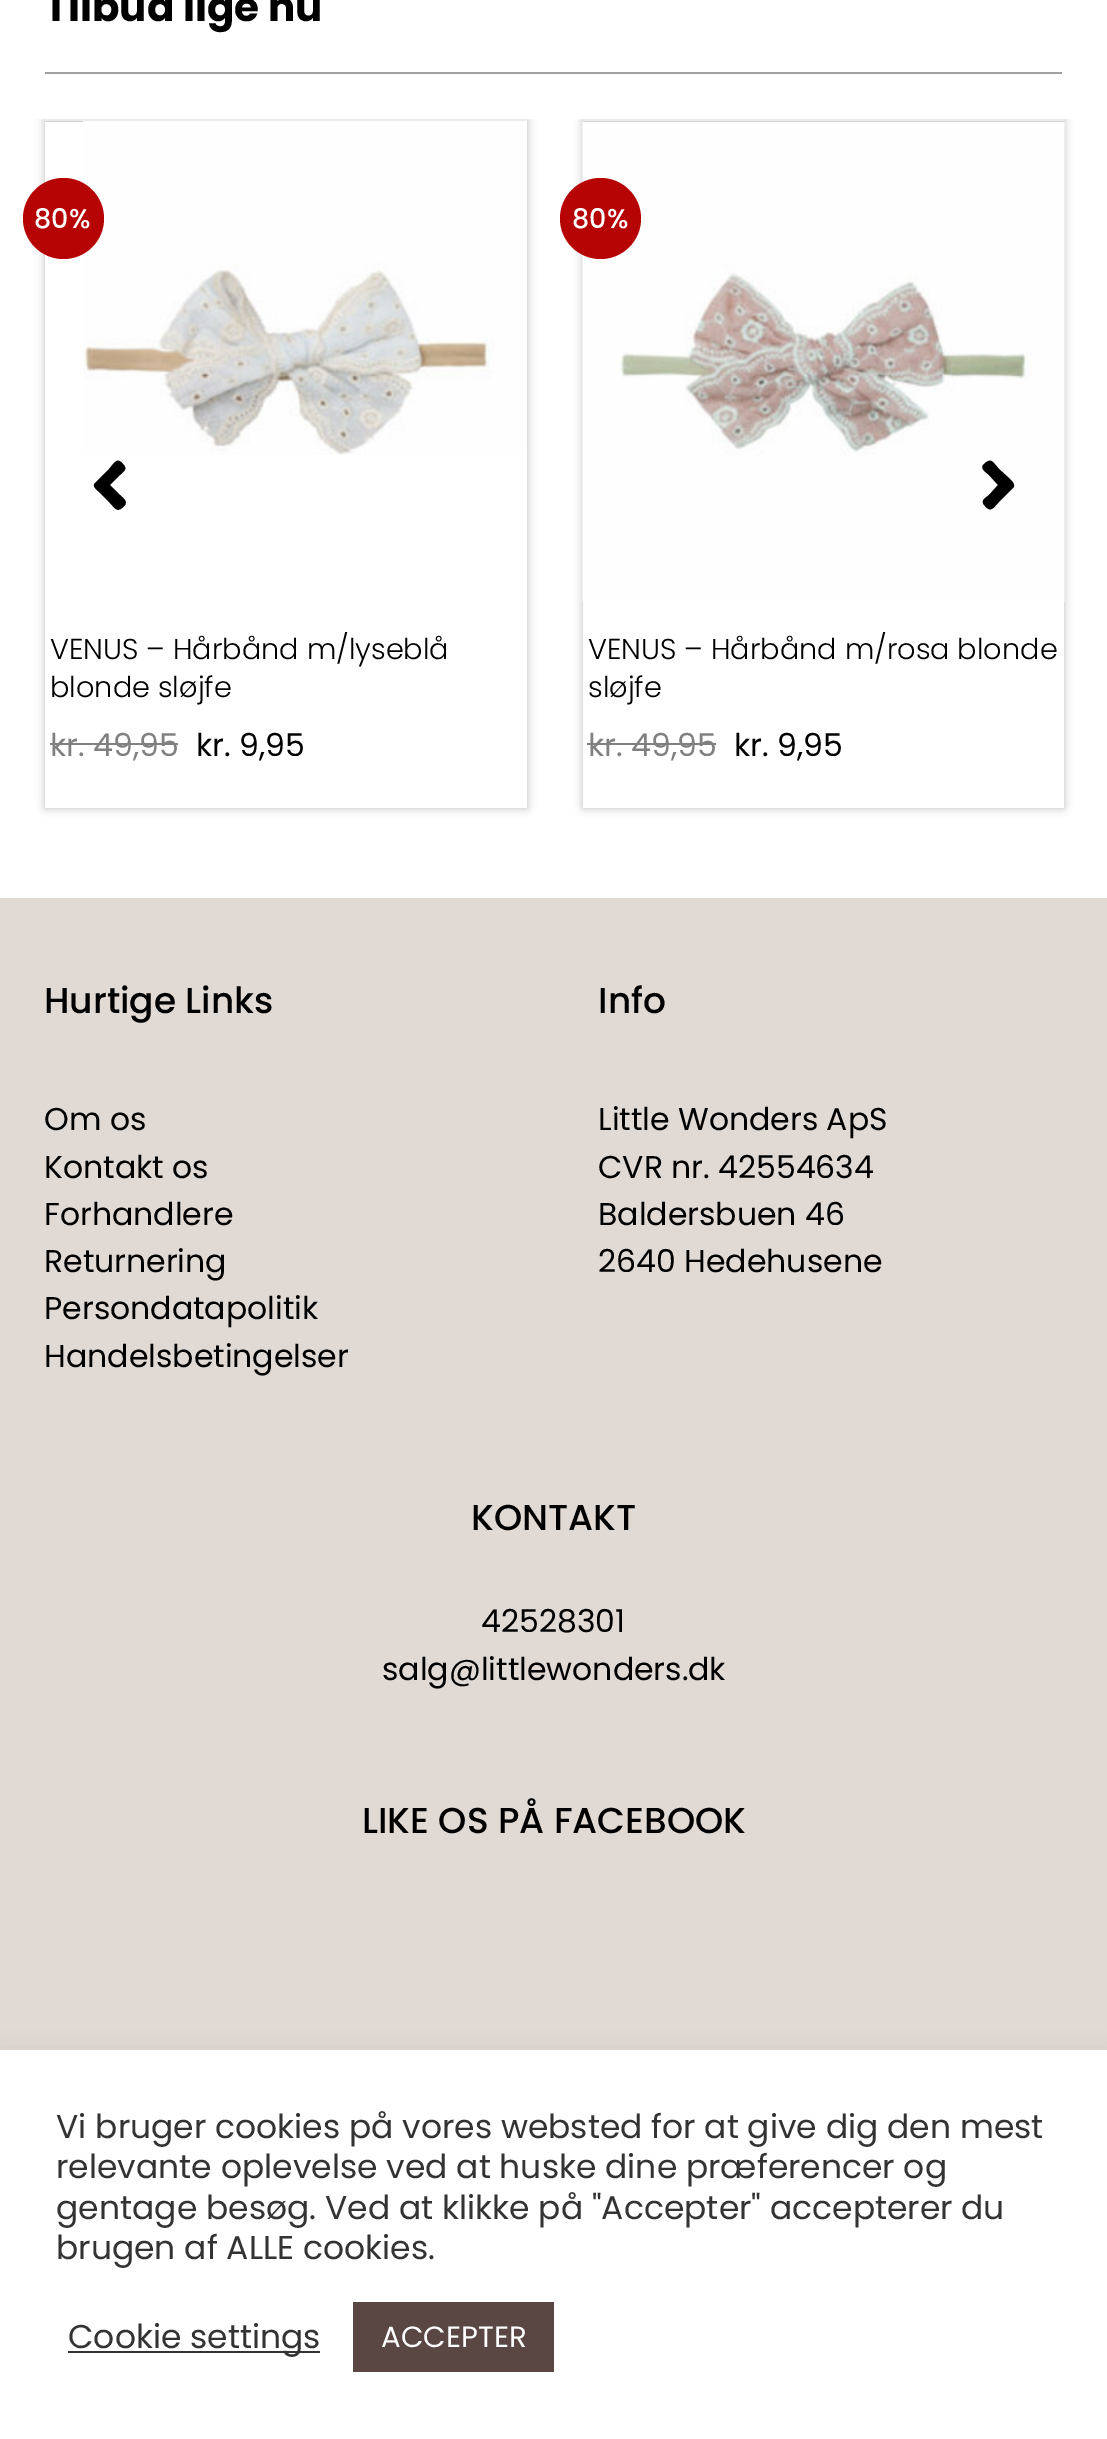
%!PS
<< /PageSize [1107 2439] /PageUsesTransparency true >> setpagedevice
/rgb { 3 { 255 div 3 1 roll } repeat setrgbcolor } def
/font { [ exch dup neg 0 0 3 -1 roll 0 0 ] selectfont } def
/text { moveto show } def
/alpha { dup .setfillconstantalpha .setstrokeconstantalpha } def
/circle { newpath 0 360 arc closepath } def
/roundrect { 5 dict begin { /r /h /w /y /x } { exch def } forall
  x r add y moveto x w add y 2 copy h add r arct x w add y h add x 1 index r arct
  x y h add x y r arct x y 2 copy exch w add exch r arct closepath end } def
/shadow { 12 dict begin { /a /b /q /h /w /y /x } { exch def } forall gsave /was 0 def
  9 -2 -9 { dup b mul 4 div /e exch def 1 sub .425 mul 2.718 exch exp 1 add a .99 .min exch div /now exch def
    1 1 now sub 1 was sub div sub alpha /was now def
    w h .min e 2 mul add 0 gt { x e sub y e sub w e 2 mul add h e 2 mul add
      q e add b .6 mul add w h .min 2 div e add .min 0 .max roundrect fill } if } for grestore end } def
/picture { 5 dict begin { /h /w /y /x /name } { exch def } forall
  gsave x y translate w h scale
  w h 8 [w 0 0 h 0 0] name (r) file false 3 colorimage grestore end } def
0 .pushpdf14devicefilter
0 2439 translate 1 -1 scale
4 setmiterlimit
255 255 255 rgb
0 0 1107 2439 rectfill
160 160 160 rgb
45 72 1017 2 rectfill
gsave
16 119 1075 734 rectclip
0 0 0 rgb
45 119 482 689 0 4.5 0.25 shadow
grestore
255 255 255 rgb
45 122 482 686 rectfill
235 235 235 rgb
45 119 482 2 rectfill
(img_01.rgb) 83 121 444 334 picture
182 4 4 rgb
63.5 218.5 40.5 circle fill
128 128 128 rgb
50 743 128 2 rectfill
gsave
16 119 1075 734 rectclip
0 0 0 rgb
583 119 481 689 0 4.5 0.25 shadow
grestore
255 255 255 rgb
583 122 481 686 rectfill
235 235 235 rgb
583 119 481 2 rectfill
(img_02.rgb) 582 122 483 480 picture
182 4 4 rgb
600.5 218.5 40.5 circle fill
128 128 128 rgb
587 743 129 2 rectfill
0 0 0 rgb
95 483 moveto 14 -14 rlineto 6 -7 8 -12 14 -5 rcurveto 5 5 1 7 -3 11 rcurveto -10 10 rlineto 10 10 rlineto 2 2 8 6 5 10 rcurveto -8 9 -9 4 -16 -3 rcurveto -11 -11 rlineto -2 -2 -6 -5 -3 -8 rcurveto closepath fill
1013 488 moveto -14 14 rlineto -6 6 -8 11 -14 4 rcurveto -5 -5 -1 -7 4 -11 rcurveto 9 -10 rlineto -9 -10 rlineto -2 -2 -9 -6 -6 -10 rcurveto 8 -8 9 -4 16 4 rcurveto 11 10 rlineto 2 2 6 6 3 9 rcurveto closepath fill
225 217 211 rgb
0 898 1107 1152 rectfill
172 171 171 rgb
0 2048 1107 389 0 11 0.3 shadow
255 255 255 rgb
0 2050 1107 389 rectfill
51 51 51 rgb
68 2351 252 2 rectfill
90 71 67 rgb
353 2302 201 70 rectfill
/Poppins-Bold 40.5 font
0 0 0 rgb
(Tilbud lige nu) 44 21 text
/Poppins-Medium 27 font
255 255 255 rgb
(80%) 34 228 text
/Poppins-Light 28.75 font
0 0 0 rgb
(VENUS – Hårbånd m/lyseblå) 50 659 text
(blonde sløjfe) 50 697 text
/Poppins-Regular 31.5 font
128 128 128 rgb
(kr. 49,95) 50 756 text
0 0 0 rgb
(kr. 9,95) 196 756 text
/Poppins-Medium 27 font
255 255 255 rgb
(80%) 572 228 text
/Poppins-Light 28.75 font
0 0 0 rgb
(VENUS – Hårbånd m/rosa blonde) 588 659 text
(sløjfe) 588 697 text
/Poppins-Regular 31.5 font
128 128 128 rgb
(kr. 49,95) 588 756 text
0 0 0 rgb
(kr. 9,95) 734 756 text
/Poppins-Medium 36 font
(Hurtige Links) 44 1013 text
/Poppins-Regular 31.5 font
(Om os) 44 1130 text
(Kontakt os) 44 1178 text
(Forhandlere) 44 1225 text
(Returnering) 44 1272 text
(Persondatapolitik) 44 1319 text
(Handelsbetingelser) 44 1367 text
/Poppins-Medium 36 font
(Info) 598 1013 text
/Poppins-Regular 31.5 font
(Little Wonders ApS) 598 1130 text
(CVR nr. 42554634) 598 1178 text
(Baldersbuen 46) 598 1225 text
(2640 Hedehusene) 598 1272 text
/Poppins-Medium 36 font
(KONTAKT) 471 1530 text
/Poppins-Regular 31.5 font
(42528301) 481 1632 text
(salg@littlewonders.dk) 382 1680 text
/Poppins-Medium 36 font
(LIKE OS PÅ FACEBOOK) 362 1833 text
/Poppins-Regular 33 font
51 51 51 rgb
(Vi bruger cookies på vores websted for at give dig den mest) 56 2138 text
(relevante oplevelse ved at huske dine præferencer og) 56 2178 text
(gentage besøg. Ved at klikke på "Accepter" accepterer du) 56 2219 text
(brugen af ALLE cookies.) 56 2259 text
(Cookie settings) 68 2348 text
/Poppins-Regular 29.25 font
255 255 255 rgb
(ACCEPTER) 381 2347 text
.poppdf14devicefilter showpage
